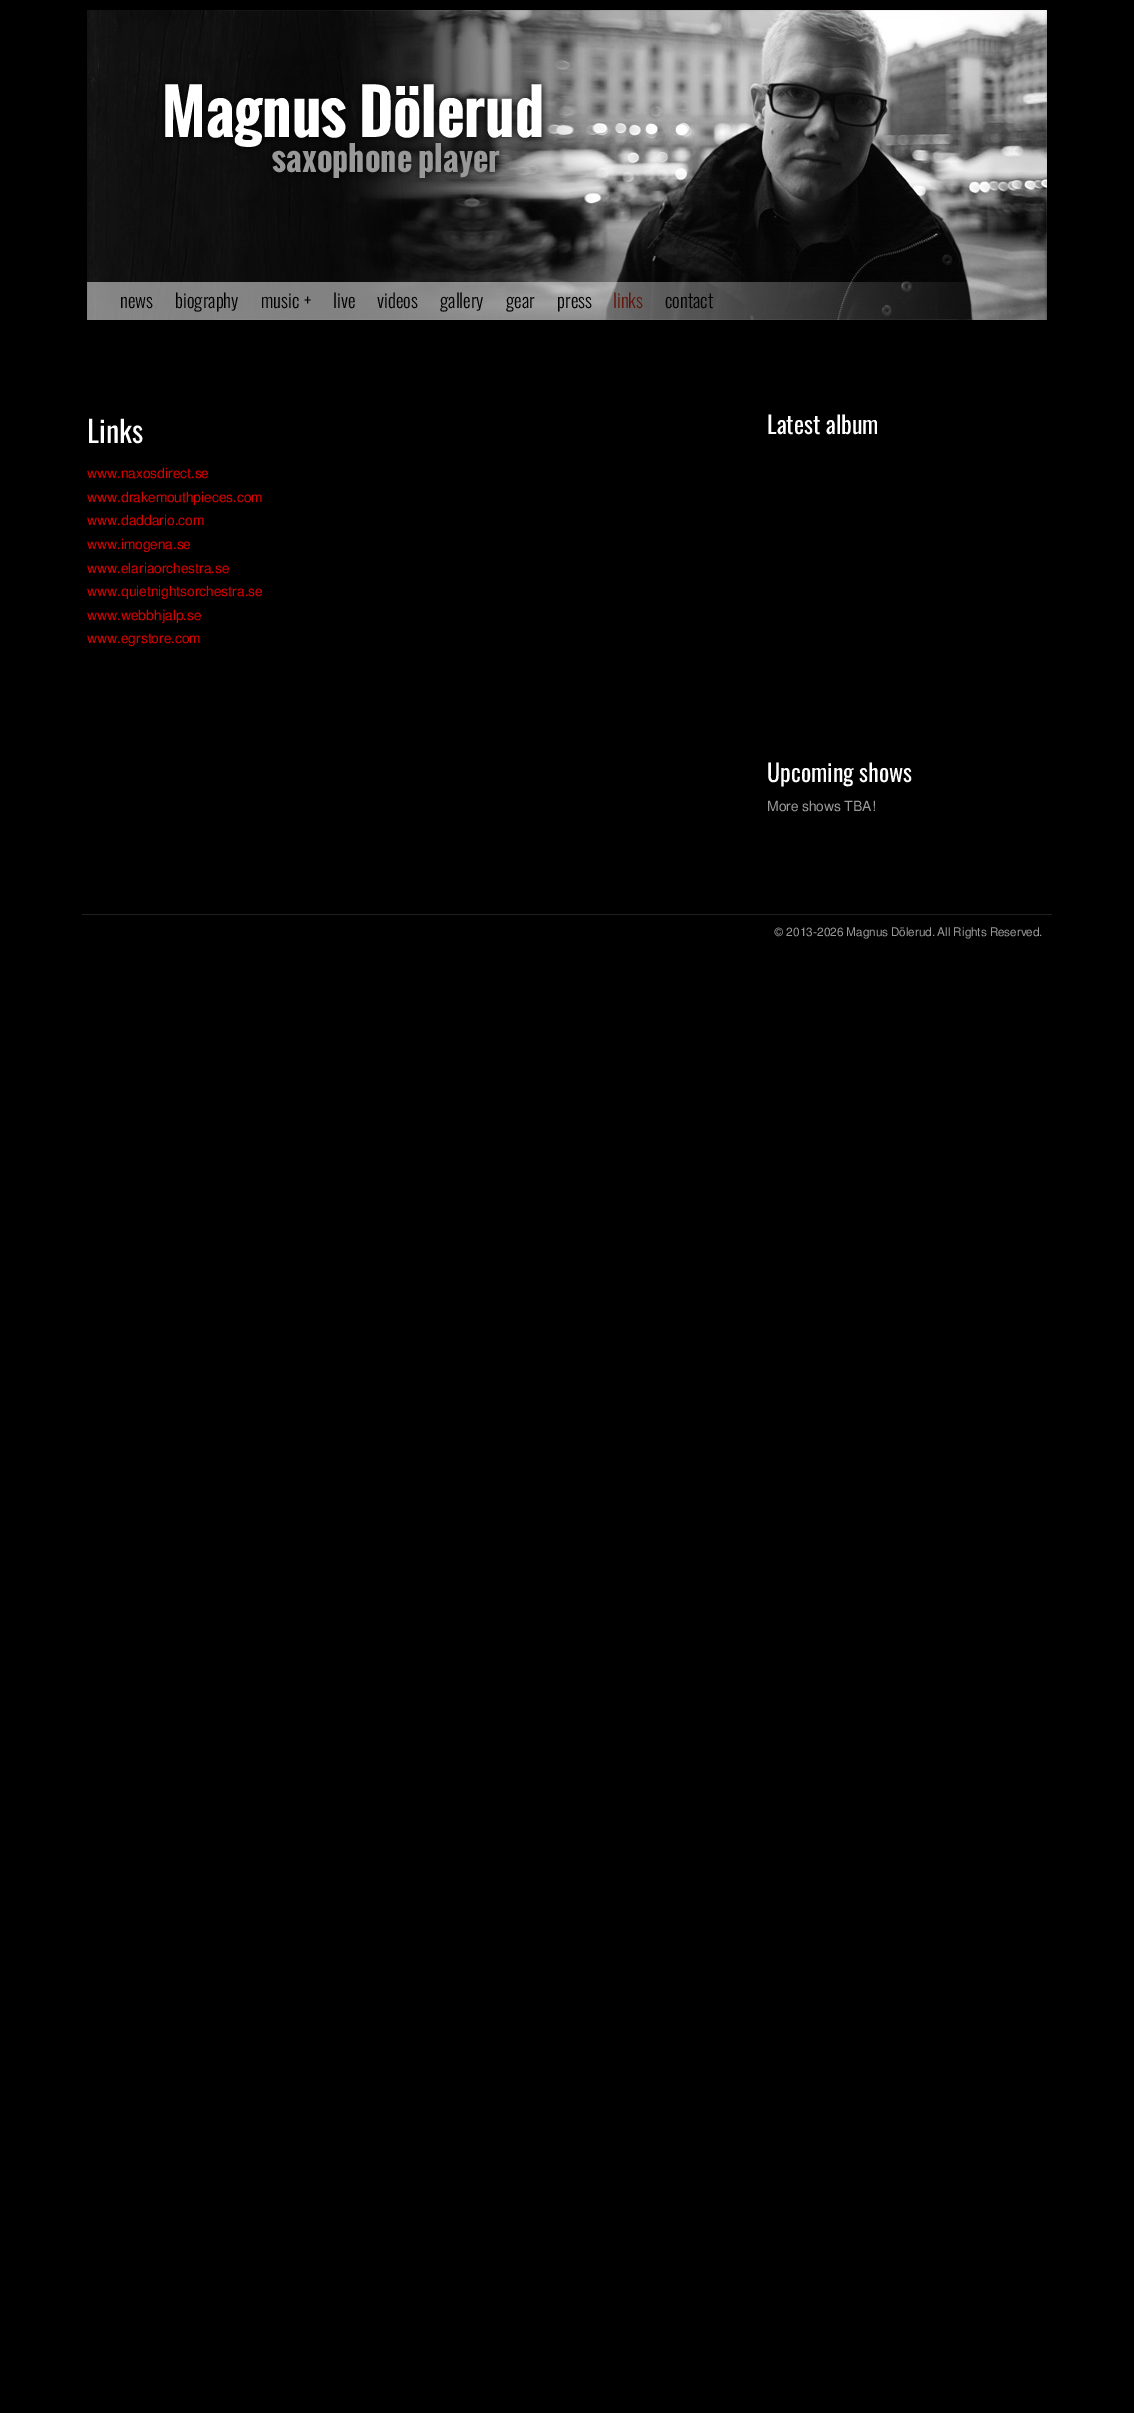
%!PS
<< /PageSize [1134 2413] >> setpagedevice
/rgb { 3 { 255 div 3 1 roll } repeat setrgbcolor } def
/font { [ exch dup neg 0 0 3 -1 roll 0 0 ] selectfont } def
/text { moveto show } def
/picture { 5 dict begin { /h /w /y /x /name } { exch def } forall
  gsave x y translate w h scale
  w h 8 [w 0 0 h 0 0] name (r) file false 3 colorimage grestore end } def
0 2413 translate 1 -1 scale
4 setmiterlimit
0 0 0 rgb
0 0 1134 2413 rectfill
(img_01.rgb) 87 10 960 310 picture
(img_02.rgb) 162 78 387 104 picture
(img_03.rgb) 87 282 912 38 picture
32 32 32 rgb
82 914 970 1 rectfill
/Oswald-Light 19 font
0 0 0 rgb
(news) 120 308 text
(biography) 175 308 text
(music) 261 308 text
(+) 304 308 text
(live) 333 308 text
(videos) 377 308 text
(gallery) 440 308 text
(gear) 506 308 text
(press) 557 308 text
98 21 11 rgb
(links) 613 308 text
0 0 0 rgb
(contact) 665 308 text
/Oswald-Regular 30 font
255 255 255 rgb
(Links) 87 443 text
/FreeSans-Regular 14 font
213 2 0 rgb
(www.naxosdirect.se) 87 478 text
(www.drakemouthpieces.com) 87 502 text
(www.daddario.com) 87 525 text
(www.imogena.se) 87 549 text
(www.elariaorchestra.se) 87 573 text
(www.quietnightsorchestra.se) 87 596 text
(www.webbhjalp.se) 87 620 text
(www.egrstore.com) 87 643 text
/Oswald-Regular 24 font
255 255 255 rgb
(Latest album) 767 434 text
(Upcoming shows) 767 782 text
/FreeSans-Regular 14 font
153 153 153 rgb
(More shows TBA!) 767 811 text
/FreeSans-Regular 11.9 font
(© 2013-2026 Magnus Dölerud. All Rights Reserved.) 774 936 text
showpage
